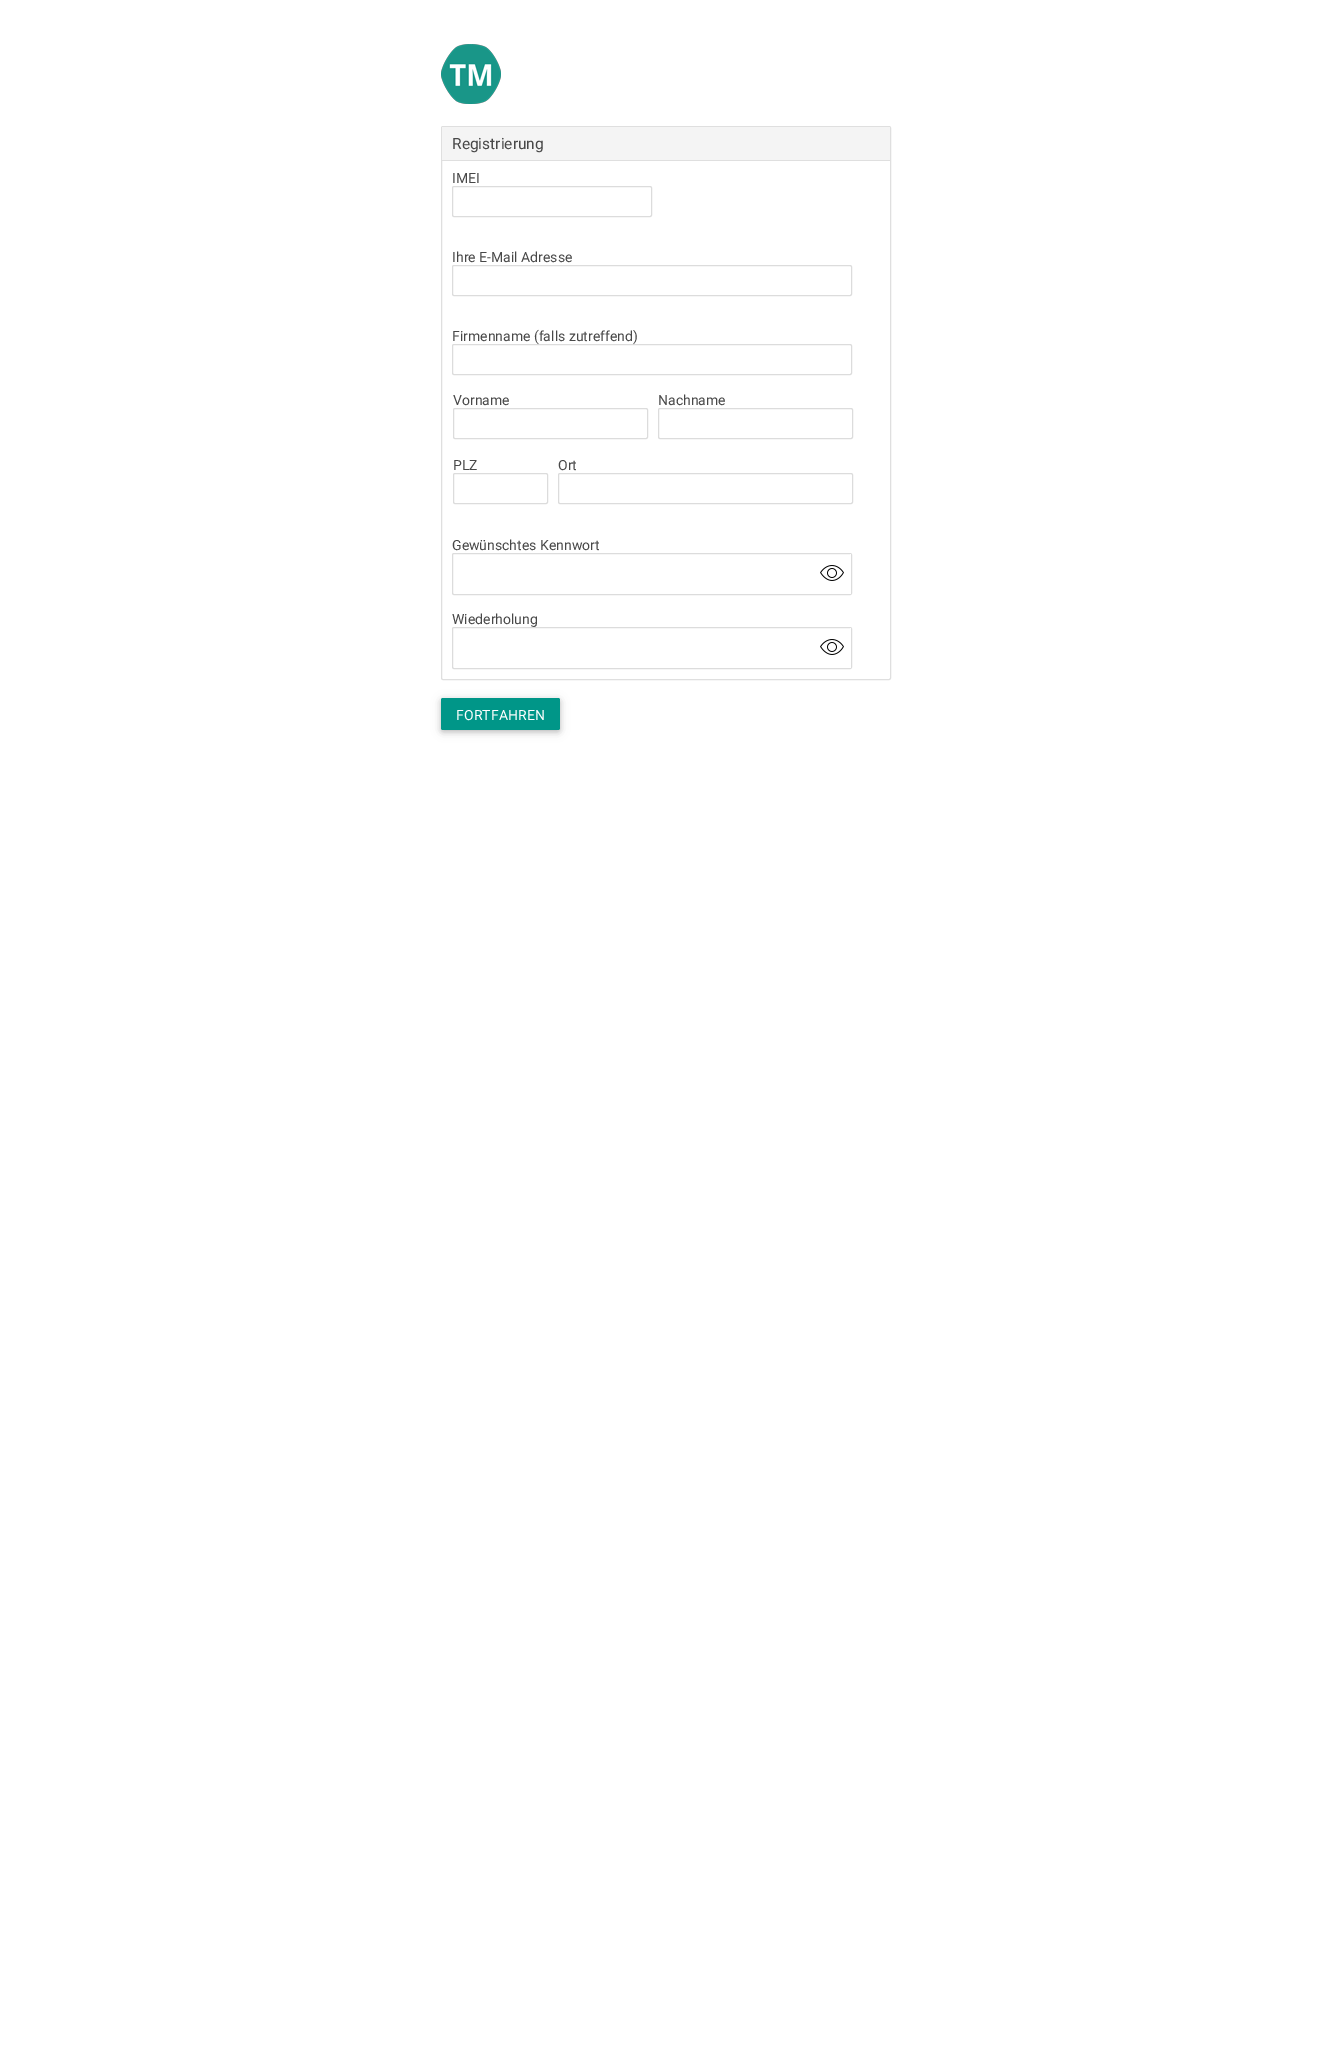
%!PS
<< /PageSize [1331 2068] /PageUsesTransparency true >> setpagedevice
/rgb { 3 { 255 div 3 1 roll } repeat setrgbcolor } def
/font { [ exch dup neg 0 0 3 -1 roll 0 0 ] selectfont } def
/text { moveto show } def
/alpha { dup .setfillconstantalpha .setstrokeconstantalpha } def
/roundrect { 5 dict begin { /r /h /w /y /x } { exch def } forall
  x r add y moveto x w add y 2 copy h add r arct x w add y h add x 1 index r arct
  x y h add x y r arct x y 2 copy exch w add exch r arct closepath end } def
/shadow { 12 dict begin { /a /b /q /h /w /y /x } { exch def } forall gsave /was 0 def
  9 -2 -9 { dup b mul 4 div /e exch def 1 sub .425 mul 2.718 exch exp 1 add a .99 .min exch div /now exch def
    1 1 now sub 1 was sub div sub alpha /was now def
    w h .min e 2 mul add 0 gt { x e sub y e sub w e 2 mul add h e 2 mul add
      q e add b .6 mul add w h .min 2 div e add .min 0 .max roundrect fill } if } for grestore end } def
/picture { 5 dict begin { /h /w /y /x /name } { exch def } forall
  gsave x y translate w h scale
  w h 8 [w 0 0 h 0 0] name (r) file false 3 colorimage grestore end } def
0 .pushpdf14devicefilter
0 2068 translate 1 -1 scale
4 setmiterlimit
255 255 255 rgb
0 0 1331 2068 rectfill
(img_01.rgb) 441 44 60 60 picture
223 223 223 rgb
441.5 126.5 449 553 1.5 roundrect stroke
244 244 244 rgb
442 127 448 33 rectfill
223 223 223 rgb
442 160 448 1 rectfill
220 220 220 rgb
452.5 186.5 199 30 1.5 roundrect stroke
452.5 265.5 399 30 1.5 roundrect stroke
452.5 344.5 399 30 1.5 roundrect stroke
453.5 408.5 194 30 1.5 roundrect stroke
658.5 408.5 194 30 1.5 roundrect stroke
453.5 473.5 94 30 1.5 roundrect stroke
558.5 473.5 294 30 1.5 roundrect stroke
452.5 553.5 399 41 1.5 roundrect stroke
255 255 255 rgb
850 554 1 40 rectfill
(img_02.rgb) 820 565 24 16 picture
220 220 220 rgb
452.5 627.5 399 41 1.5 roundrect stroke
255 255 255 rgb
850 628 1 40 rectfill
(img_02.rgb) 820 639 24 16 picture
0 0 0 rgb
441 700 119 32 2 5 0.12 shadow
441 700 119 32 2 2.5 0.16 shadow
0 150 136 rgb
441 698 119 32 2 roundrect fill
/Roboto-Regular 15.5 font
72 72 72 rgb
(Registrierung) 452 149 text
/Roboto-Regular 14 font
(IMEI) 452 183 text
(Ihre E-Mail Adresse) 452 262 text
(Firmenname \(falls zutreffend\)) 452 341 text
(Vorname) 453 405 text
(Nachname) 658 405 text
(PLZ) 453 470 text
(Ort) 558 470 text
(Gewünschtes Kennwort) 452 550 text
(Wiederholung) 452 624 text
255 255 255 rgb
456 720 moveto 0.1 0 (FORTFAHREN) ashow
.poppdf14devicefilter showpage
